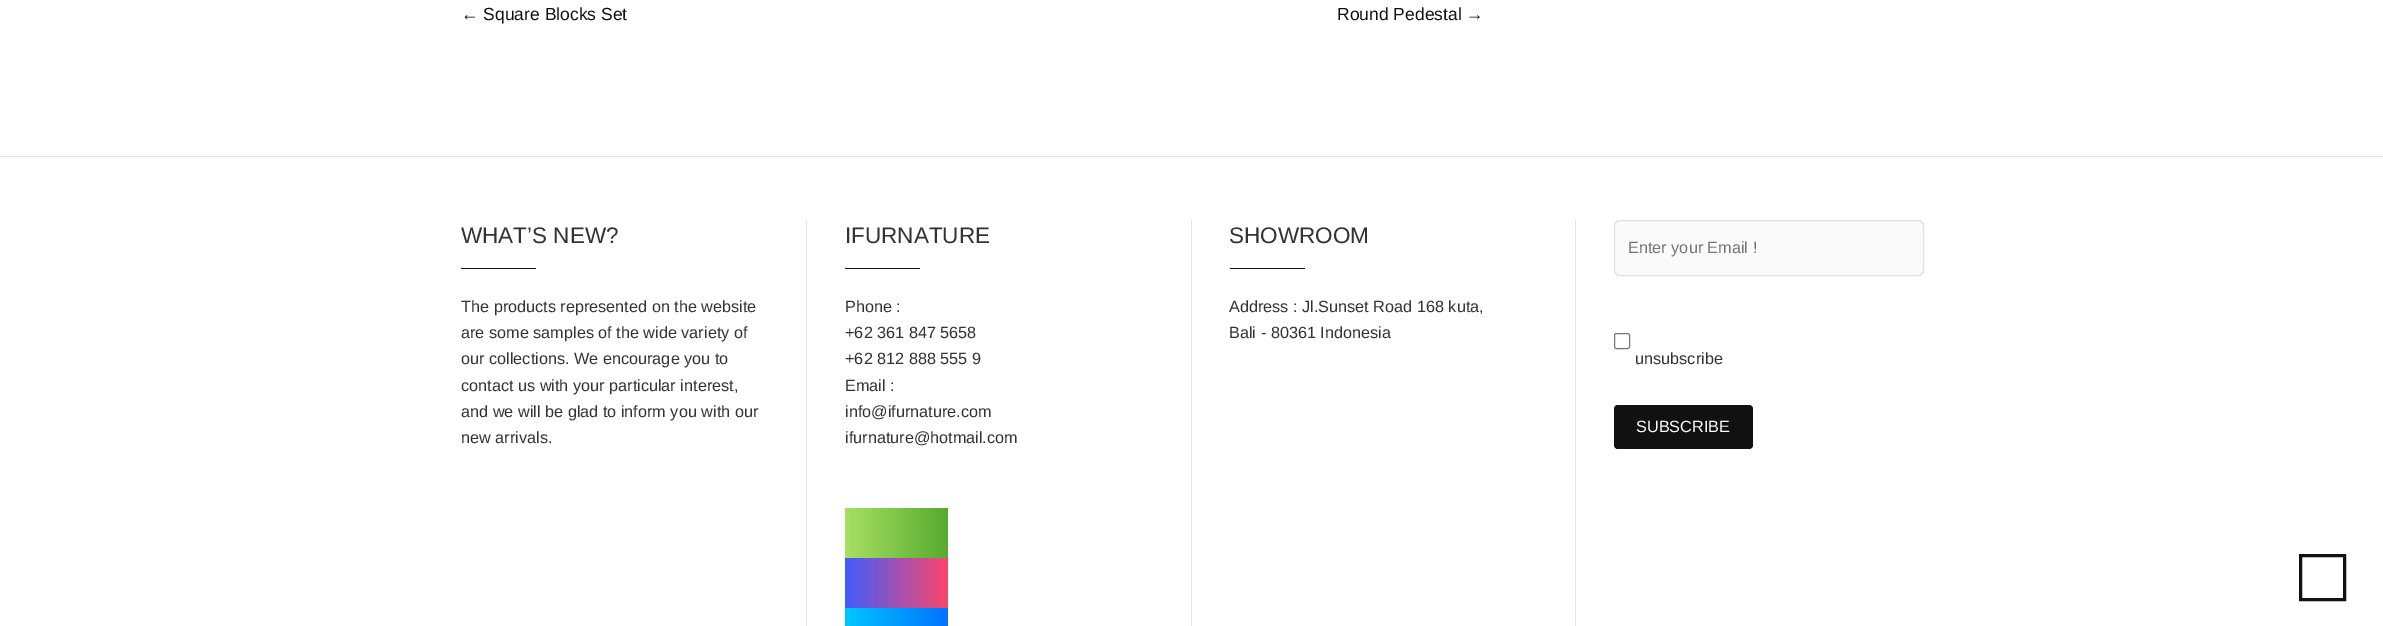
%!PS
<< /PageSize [2383 626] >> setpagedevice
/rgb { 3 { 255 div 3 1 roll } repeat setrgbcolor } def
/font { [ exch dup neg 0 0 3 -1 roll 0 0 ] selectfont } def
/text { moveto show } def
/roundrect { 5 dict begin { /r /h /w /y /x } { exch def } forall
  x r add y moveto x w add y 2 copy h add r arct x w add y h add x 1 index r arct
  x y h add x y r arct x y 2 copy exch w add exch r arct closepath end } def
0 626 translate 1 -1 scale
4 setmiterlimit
255 255 255 rgb
0 0 2383 626 rectfill
230 230 230 rgb
0 156 2383 1 rectfill
228 228 228 rgb
806 220 1 406 rectfill
17 17 17 rgb
461 268 75 1 rectfill
228 228 228 rgb
1191 220 1 406 rectfill
17 17 17 rgb
845 268 75 1 rectfill
gsave 845 508 moveto 103 0 rlineto 0 50 rlineto -103 0 rlineto closepath clip newpath
<< /ShadingType 2 /ColorSpace /DeviceRGB /Coords [845 533 948 533] /Extend [true true] /Function << /FunctionType 2 /Domain [0 1] /C0 [0.659 0.878 0.388] /C1 [0.337 0.671 0.184] /N 1 >> >> shfill grestore
gsave 845 558 moveto 103 0 rlineto 0 50 rlineto -103 0 rlineto closepath clip newpath
<< /ShadingType 2 /ColorSpace /DeviceRGB /Coords [845 583 948 583] /Extend [true true] /Function << /FunctionType 2 /Domain [0 1] /C0 [0.247 0.369 0.984] /C1 [0.988 0.275 0.42] /N 1 >> >> shfill grestore
gsave 845 608 moveto 103 0 rlineto 0 18 rlineto -103 0 rlineto closepath clip newpath
<< /ShadingType 2 /ColorSpace /DeviceRGB /Coords [948 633 845 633] /Extend [true true] /Function << /FunctionType 2 /Domain [0 1] /C0 [0 0.447 1] /C1 [0 0.776 1] /N 1 >> >> shfill grestore
228 228 228 rgb
1575 220 1 406 rectfill
17 17 17 rgb
1230 268 75 1 rectfill
250 250 250 rgb
1614.5 220.5 309 55 5.5 roundrect gsave fill grestore
225 225 225 rgb
stroke
118 118 118 rgb
1614.5 333.5 15 15 2 roundrect stroke
17 17 17 rgb
1614 405 139 44 4 roundrect fill
3 setlinewidth
2300.5 555.5 44 44 rectstroke
/LiberationSans-Regular 17.5 font
(← Square Blocks Set) 461 20 text
(Round Pedestal →) 1337 20 text
/LiberationSans-Regular 22.5 font
51 51 51 rgb
(WHAT’S NEW?) 461 243 text
/LiberationSans-Regular 16.25 font
(The products represented on the website) 461 312 text
(are some samples of the wide variety of) 461 338 text
(our collections. We encourage you to) 461 364 text
(contact us with your particular interest,) 461 391 text
(and we will be glad to inform you with our) 461 417 text
(new arrivals.) 461 443 text
/LiberationSans-Regular 22.5 font
(IFURNATURE) 845 243 text
/LiberationSans-Regular 16.25 font
(Phone :) 845 312 text
(+62 361 847 5658) 845 338 text
(+62 812 888 555 9) 845 364 text
(Email :) 845 391 text
(info@ifurnature.com) 845 417 text
(ifurnature@hotmail.com) 845 443 text
/LiberationSans-Regular 22.5 font
(SHOWROOM) 1229 243 text
/LiberationSans-Regular 16.25 font
(Address : Jl.Sunset Road 168 kuta,) 1229 312 text
(Bali - 80361 Indonesia) 1229 338 text
117 117 117 rgb
(Enter your Email !) 1628 253 text
51 51 51 rgb
(unsubscribe) 1635 364 text
255 255 255 rgb
(SUBSCRIBE) 1636 432 text
showpage
